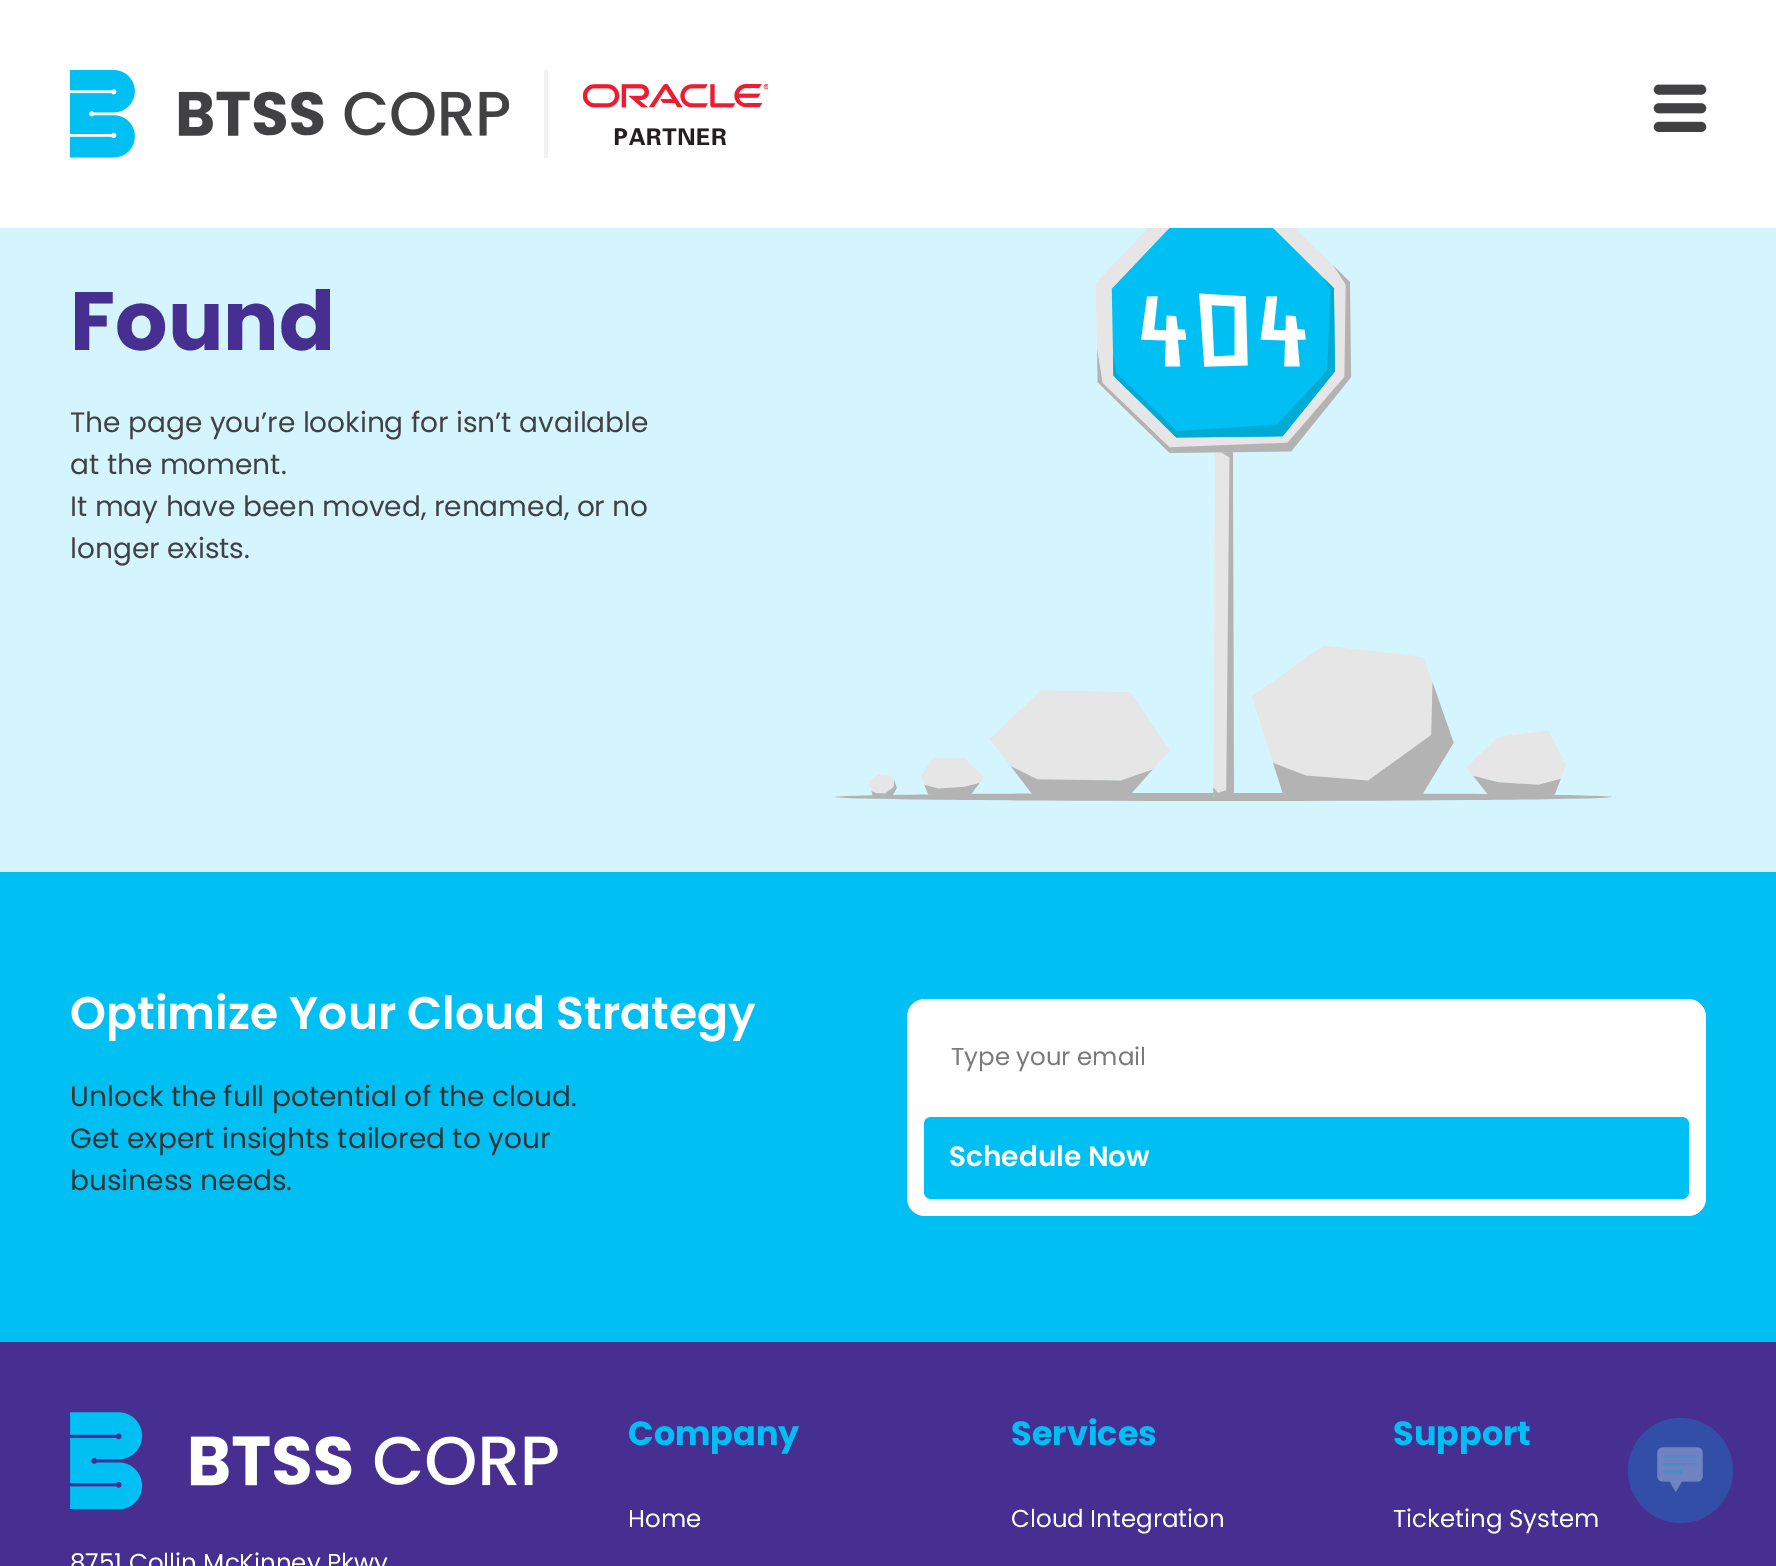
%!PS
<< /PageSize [1776 1566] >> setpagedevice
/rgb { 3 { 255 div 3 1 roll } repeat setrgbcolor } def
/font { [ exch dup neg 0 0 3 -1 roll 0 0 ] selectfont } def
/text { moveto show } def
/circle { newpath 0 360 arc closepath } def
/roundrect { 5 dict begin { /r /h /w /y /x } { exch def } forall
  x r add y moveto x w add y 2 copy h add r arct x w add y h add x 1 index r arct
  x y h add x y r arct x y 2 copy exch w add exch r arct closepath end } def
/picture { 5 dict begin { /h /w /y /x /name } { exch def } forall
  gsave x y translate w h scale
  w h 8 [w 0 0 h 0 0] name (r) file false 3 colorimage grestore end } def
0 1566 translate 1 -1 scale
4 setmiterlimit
212 245 254 rgb
0 0 1776 1566 rectfill
255 255 255 rgb
0 0 1776 228 rectfill
(img_01.rgb) 70 70 439 88 picture
242 241 241 rgb
544 70 4 88 rectfill
(img_02.rgb) 583 84 185 61 picture
(img_03.rgb) 1653 84 54 48 picture
(img_04.rgb) 835 228 777 573 picture
0 192 243 rgb
0 872 1776 470 rectfill
255 255 255 rgb
907 999 799 217 18 roundrect fill
0 192 243 rgb
924 1117 765 82 7 roundrect fill
71 47 146 rgb
0 1342 1776 224 rectfill
(img_05.rgb) 70 1412 488 97 picture
51 78 166 rgb
1680.5 1470.5 52.5 circle fill
(img_06.rgb) 1657 1447 46 45 picture
/Poppins-Bold 82.5 font
71 47 146 rgb
(Found) 70 350 text
/Poppins-Regular 28 font
65 64 66 rgb
(The page you’re looking for isn’t available) 70 432 text
(at the moment.) 70 474 text
(It may have been moved, renamed, or no) 70 516 text
(longer exists.) 70 558 text
/Poppins-SemiBold 45.75 font
255 255 255 rgb
(Optimize Your Cloud Strategy) 70 1029 text
/Poppins-Regular 28 font
51 51 51 rgb
(Unlock the full potential of the cloud.) 70 1106 text
(Get expert insights tailored to your) 70 1148 text
(business needs.) 70 1190 text
/Poppins-Regular 24.5 font
121 122 124 rgb
(Type your email) 951 1065 text
/Poppins-SemiBold 28 font
255 255 255 rgb
(Schedule Now) 949 1166 text
/Poppins-Bold 33.5 font
0 192 243 rgb
(Company) 628 1445 text
/Poppins-Regular 24.5 font
255 255 255 rgb
(Home) 628 1527 text
/Poppins-Bold 33.5 font
0 192 243 rgb
(Services) 1011 1445 text
/Poppins-Regular 24.5 font
255 255 255 rgb
(Cloud Integration) 1011 1527 text
/Poppins-Bold 33.5 font
0 192 243 rgb
(Support) 1393 1445 text
/Poppins-Regular 24.5 font
255 255 255 rgb
(Ticketing System) 1393 1527 text
(8751 Collin McKinney Pkwy) 70 1571 text
showpage
